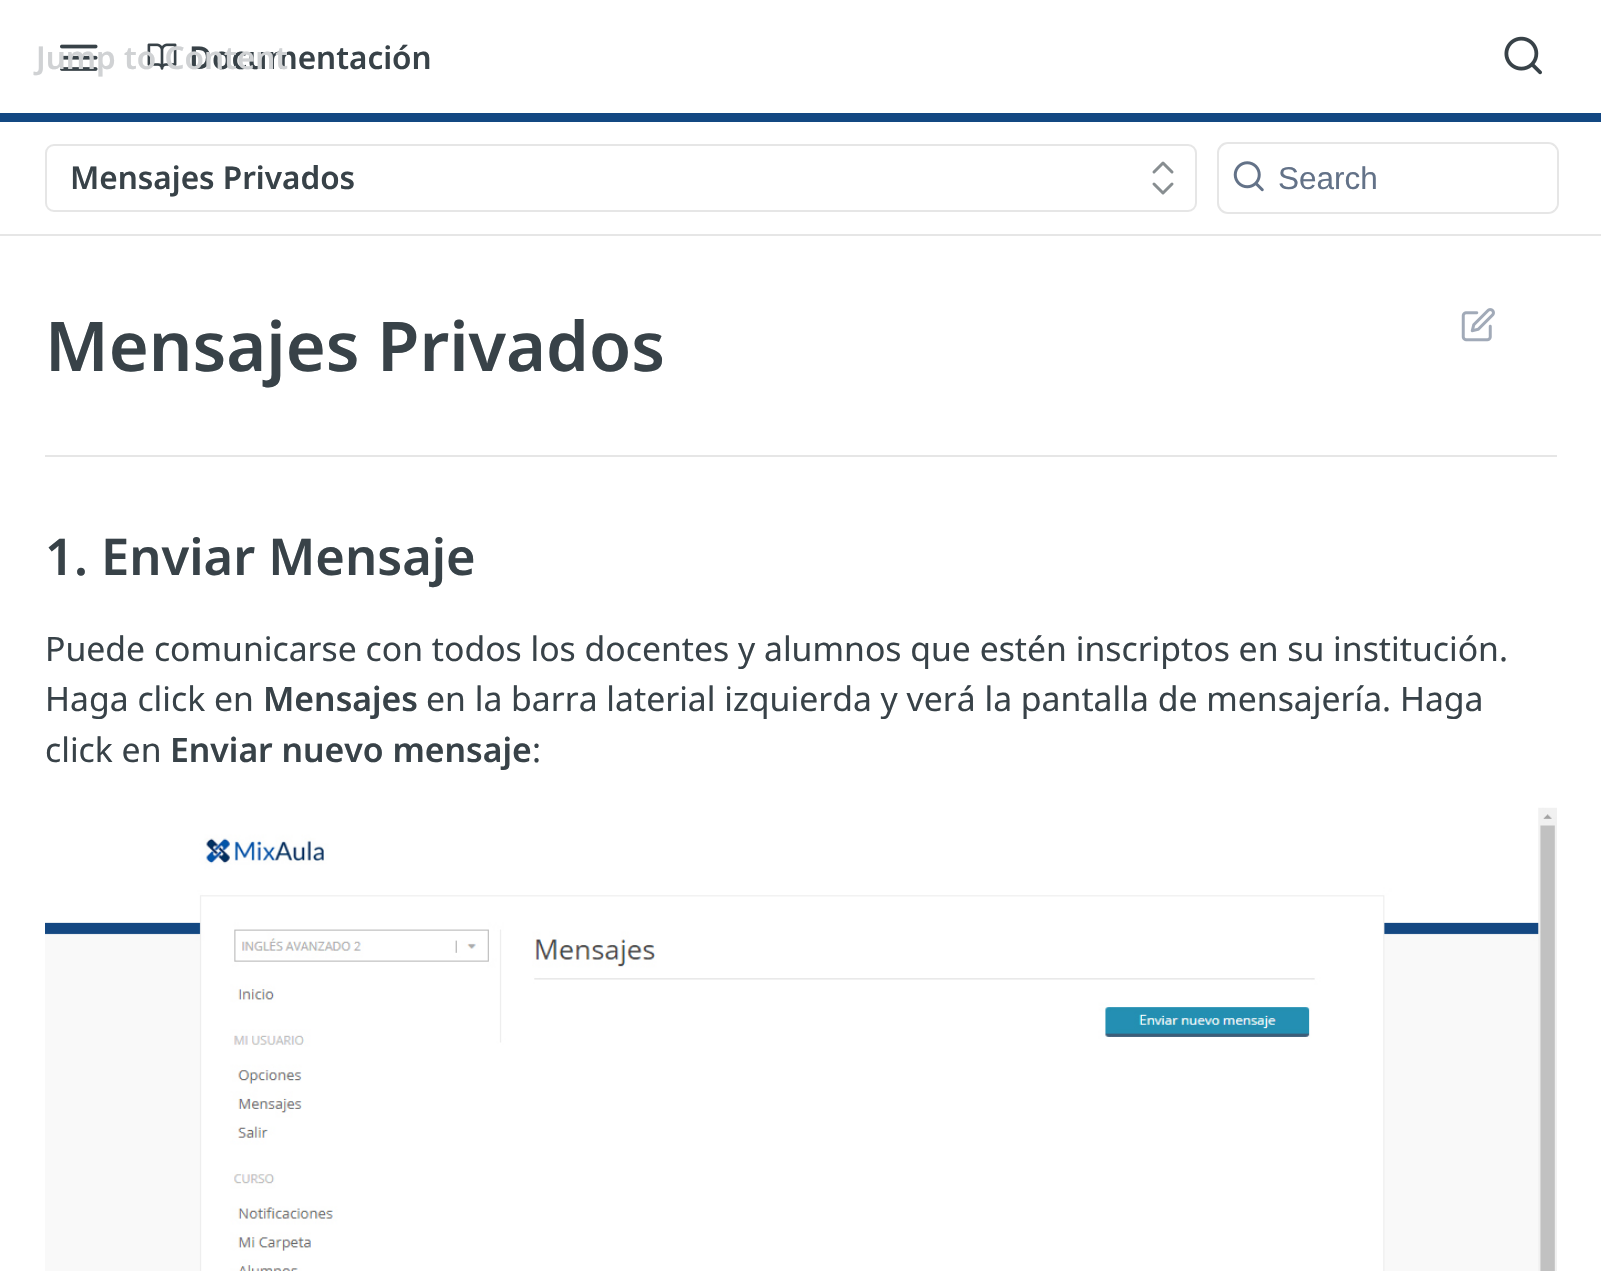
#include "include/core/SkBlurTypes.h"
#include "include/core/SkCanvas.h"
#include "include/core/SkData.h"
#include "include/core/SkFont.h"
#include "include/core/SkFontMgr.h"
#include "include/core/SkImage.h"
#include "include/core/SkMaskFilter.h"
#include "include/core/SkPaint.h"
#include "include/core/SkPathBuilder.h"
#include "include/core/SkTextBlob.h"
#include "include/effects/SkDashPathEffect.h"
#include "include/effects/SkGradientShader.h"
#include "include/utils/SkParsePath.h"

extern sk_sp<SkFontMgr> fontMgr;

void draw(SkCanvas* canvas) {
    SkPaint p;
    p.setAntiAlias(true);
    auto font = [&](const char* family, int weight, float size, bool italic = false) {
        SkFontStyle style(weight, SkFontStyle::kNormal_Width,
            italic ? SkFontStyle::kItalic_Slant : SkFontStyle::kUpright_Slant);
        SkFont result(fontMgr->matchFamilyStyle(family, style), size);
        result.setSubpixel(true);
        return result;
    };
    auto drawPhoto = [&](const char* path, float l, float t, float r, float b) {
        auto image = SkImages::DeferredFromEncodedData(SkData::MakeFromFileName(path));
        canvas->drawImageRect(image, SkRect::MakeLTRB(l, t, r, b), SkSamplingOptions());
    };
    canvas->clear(0xFFFFFFFF);
    p.setColor(0xFFE6E6E6);
    canvas->drawRect(SkRect::MakeLTRB(0, 234, 1601, 236), p);
    p.setColor(0xFF134882);
    canvas->drawRect(SkRect::MakeLTRB(0, 113, 1601, 122), p);
    drawPhoto("media/1.png", 60, 44, 98, 71);
    drawPhoto("media/2.png", 147, 43, 177, 70);
    auto font1 = font("Noto Sans", 600, 31.5f);
    p.setColor(0xFF384248);
    canvas->drawString("Documentación", 189, 69, font1, p);
    p.setColor(0xFFD0D2D4);
    canvas->drawString("Jump to Content", 36, 69, font1, p);
    drawPhoto("media/3.png", 1504, 36, 1542, 75);
    p.setStyle(SkPaint::kStroke_Style);
    p.setStrokeWidth(2);
    p.setColor(0xFFE6E6E6);
    canvas->drawRoundRect(SkRect::MakeLTRB(46, 145, 1196, 211), 8, 8, p);
    p.setStyle(SkPaint::kFill_Style);
    p.setColor(0xFF384248);
    canvas->drawString("Mensajes Privados", 70, 189, font1, p);
    p.setStyle(SkPaint::kStroke_Style);
    p.setStrokeWidth(3);
    p.setStrokeCap(SkPaint::kRound_Cap);
    p.setStrokeJoin(SkPaint::kRound_Join);
    p.setColor(0xFF888E91);
    canvas->drawPath(SkPathBuilder().moveTo(1154, 184).lineTo(1163, 193).lineTo(1172, 184).moveTo(1172, 172).lineTo(1163, 163).lineTo(1154, 172).detach(), p);
    p.setStrokeWidth(2);
    p.setStrokeCap(SkPaint::kButt_Cap);
    p.setStrokeJoin(SkPaint::kMiter_Join);
    p.setColor(0xFFE6E6E6);
    canvas->drawRoundRect(SkRect::MakeLTRB(1218, 143, 1558, 213), 10, 10, p);
    p.setStyle(SkPaint::kFill_Style);
    p.setColor(0xFFFFFFFF);
    canvas->drawRoundRect(SkRect::MakeLTRB(1220, 144, 1557, 212), 9, 9, p);
    drawPhoto("media/4.png", 1233, 161, 1264, 192);
    auto font2 = font("Liberation Sans", 400, 31.5f);
    p.setColor(0xFF637288);
    canvas->drawString("Search", 1278, 189, font2, p);
    p.setColor(0xFFE6E6E6);
    canvas->drawRect(SkRect::MakeLTRB(45, 455, 1557, 457), p);
    auto font3 = font("Noto Sans", 600, 68.5f);
    p.setColor(0xFF384248);
    canvas->drawString("Mensajes Privados", 45, 371, font3, p);
    drawPhoto("media/5.png", 1461, 308, 1495, 342);
    auto font4 = font("Noto Sans", 600, 50.6f);
    canvas->drawString("1. Enviar Mensaje", 45, 575, font4, p);
    auto font5 = font("Noto Sans", 400, 33.75f);
    canvas->drawString("Puede comunicarse con todos los docentes y alumnos que estén inscriptos en su institución.", 45, 661, font5, p);
    canvas->drawString("Haga click en", 45, 711, font5, p);
    auto font6 = font("Noto Sans", 600, 33.75f);
    canvas->drawString("Mensajes", 263, 711, font6, p);
    canvas->drawString("en la barra laterial izquierda y verá la pantalla de mensajería. Haga", 426, 711, font5, p);
    canvas->drawString("click en", 45, 762, font5, p);
    canvas->drawString("Enviar nuevo mensaje", 170, 762, font6, p);
    canvas->drawString(":", 532, 762, font5, p);
    drawPhoto("media/6.png", 45, 807, 1557, 1271);
}
